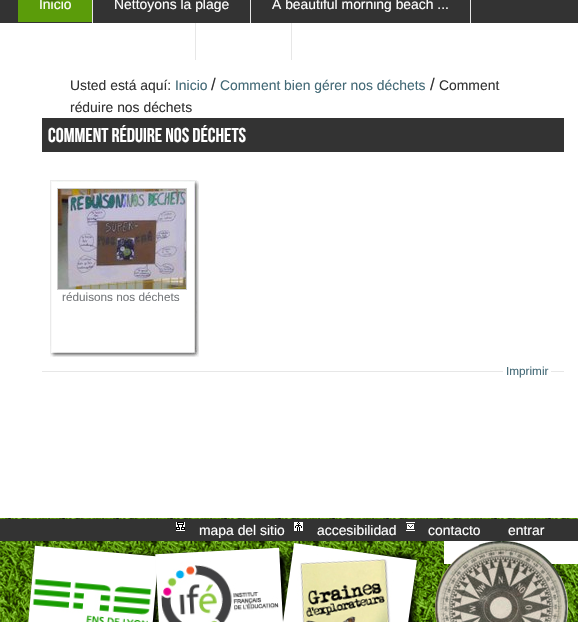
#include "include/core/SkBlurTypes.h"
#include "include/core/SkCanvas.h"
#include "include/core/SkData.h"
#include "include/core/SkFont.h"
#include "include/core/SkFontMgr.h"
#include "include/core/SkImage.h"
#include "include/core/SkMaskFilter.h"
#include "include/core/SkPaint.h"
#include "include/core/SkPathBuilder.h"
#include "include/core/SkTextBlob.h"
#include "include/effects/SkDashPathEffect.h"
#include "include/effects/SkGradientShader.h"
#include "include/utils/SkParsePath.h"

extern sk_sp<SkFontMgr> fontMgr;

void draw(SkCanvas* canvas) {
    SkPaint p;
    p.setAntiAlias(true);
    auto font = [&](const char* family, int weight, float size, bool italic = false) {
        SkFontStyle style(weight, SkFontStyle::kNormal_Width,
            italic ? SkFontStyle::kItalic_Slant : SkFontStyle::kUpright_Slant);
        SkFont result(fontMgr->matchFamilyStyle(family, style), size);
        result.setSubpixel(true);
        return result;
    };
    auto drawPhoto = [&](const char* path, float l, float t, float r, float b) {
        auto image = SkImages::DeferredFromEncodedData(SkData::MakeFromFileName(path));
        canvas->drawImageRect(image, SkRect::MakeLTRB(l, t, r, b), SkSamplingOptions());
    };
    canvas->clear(0xFFFFFFFF);
    {
        const struct { float l, t, r, b; SkColor color; } items[] = {
            {0, 0, 578, 23, 0xFF333333},
            {92, 0, 93, 23, 0xFFE7E7E7},
            {18, 0, 92, 22, 0xFF5B9C0A},
        };
        for (auto [l, t, r, b, color] : items) {
            p.setColor(color);
            canvas->drawRect(SkRect::MakeLTRB(l, t, r, b), p);
        }
    }
    auto font1 = font("Liberation Sans", 400, 13.9f);
    p.setColor(0xFFFFFFFF);
    canvas->drawString("Inicio", 39, 9, font1, p);
    p.setColor(0xFFE7E7E7);
    canvas->drawRect(SkRect::MakeLTRB(250, 0, 251, 23), p);
    p.setColor(0xFFFFFFFF);
    canvas->drawString("Nettoyons la plage", 114, 9, font1, p);
    p.setColor(0xFFE7E7E7);
    canvas->drawRect(SkRect::MakeLTRB(470, 0, 471, 23), p);
    p.setColor(0xFFFFFFFF);
    canvas->drawString("A beautiful morning beach ...", 272, 9, font1, p);
    p.setColor(0xFFE7E7E7);
    canvas->drawRect(SkRect::MakeLTRB(195, 23, 196, 60), p);
    canvas->drawRect(SkRect::MakeLTRB(291, 23, 292, 60), p);
    drawPhoto("media/1.png", 40, 0, 62, 3);
    p.setColor(0xFF333333);
    canvas->drawString("Usted está aquí:", 70, 90, font1, p);
    p.setColor(0xFF436976);
    canvas->drawString("Inicio", 175, 90, font1, p);
    auto font2 = font("Liberation Sans", 400, 17);
    p.setColor(0xFF333333);
    canvas->drawString("/", 211, 90, font2, p);
    p.setColor(0xFF436976);
    canvas->drawString("Comment bien gérer nos déchets", 220, 90, font1, p);
    p.setColor(0xFF333333);
    canvas->drawString("/", 430, 90, font2, p);
    canvas->drawString("Comment", 439, 90, font1, p);
    canvas->drawString("réduire nos déchets", 70, 112, font1, p);
    canvas->drawRect(SkRect::MakeLTRB(42, 118, 564, 152), p);
    auto font3 = font("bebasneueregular", 400, 20);
    p.setColor(0xFFFFFFFF);
    canvas->drawString("Comment réduire nos déchets", 48, 142, font3, p);
    drawPhoto("media/2.png", 50, 180, 199, 357);
    p.setStyle(SkPaint::kStroke_Style);
    p.setStrokeWidth(1);
    p.setColor(0xFFCCCCCC);
    canvas->drawRect(SkRect::MakeLTRB(57.5f, 188.5f, 186.5f, 289.5f), p);
    drawPhoto("media/3.png", 58, 189, 186, 289);
    auto font4 = font("Liberation Sans", 400, 11.75f);
    p.setStyle(SkPaint::kFill_Style);
    p.setColor(0xFF76797C);
    canvas->drawString("réduisons nos déchets", 62, 301, font4, p);
    p.setColor(0xFFE7E7E7);
    canvas->drawRect(SkRect::MakeLTRB(42, 371, 564, 372), p);
    p.setColor(0xFFFFFFFF);
    canvas->drawRect(SkRect::MakeLTRB(503, 371, 551, 372), p);
    p.setColor(0xFF436976);
    canvas->drawString("Imprimir", 506, 375, font4, p);
    drawPhoto("media/4.png", 0, 518, 578, 622);
    canvas->drawRect(SkRect::MakeLTRB(154, 605, 158, 606), p);
    p.setColor(0xFF000000);
    p.setMaskFilter(SkMaskFilter::MakeBlur(kNormal_SkBlurStyle, 2.5f));
    canvas->drawRect(SkRect::MakeLTRB(34, 555, 158, 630), p);
    p.setMaskFilter(nullptr);
    drawPhoto("media/5.png", 28, 545, 157, 622);
    p.setMaskFilter(SkMaskFilter::MakeBlur(kNormal_SkBlurStyle, 2.5f));
    canvas->drawRect(SkRect::MakeLTRB(162, 555, 286, 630), p);
    p.setMaskFilter(nullptr);
    drawPhoto("media/8.png", 155, 547, 283, 622);
    p.setMaskFilter(SkMaskFilter::MakeBlur(kNormal_SkBlurStyle, 2.5f));
    canvas->drawRect(SkRect::MakeLTRB(290, 555, 414, 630), p);
    p.setMaskFilter(nullptr);
    drawPhoto("media/6.png", 283, 543, 417, 622);
    p.setColor(0xFFFFFFFF);
    canvas->drawRect(SkRect::MakeLTRB(444, 541, 578, 564), p);
    drawPhoto("media/7.png", 435, 541, 568, 622);
    p.setColor(0xFF333333);
    canvas->drawRect(SkRect::MakeLTRB(0, 519, 578, 541), p);
    drawPhoto("media/9.png", 176, 522, 185, 531);
    p.setColor(0xFFFFFFFF);
    canvas->drawString("mapa del sitio", 199, 535, font1, p);
    drawPhoto("media/10.png", 294, 522, 303, 531);
    canvas->drawString("accesibilidad", 317, 535, font1, p);
    drawPhoto("media/11.png", 406, 522, 415, 531);
    canvas->drawString("contacto", 428, 535, font1, p);
    canvas->drawString("entrar", 508, 535, font1, p);
}
